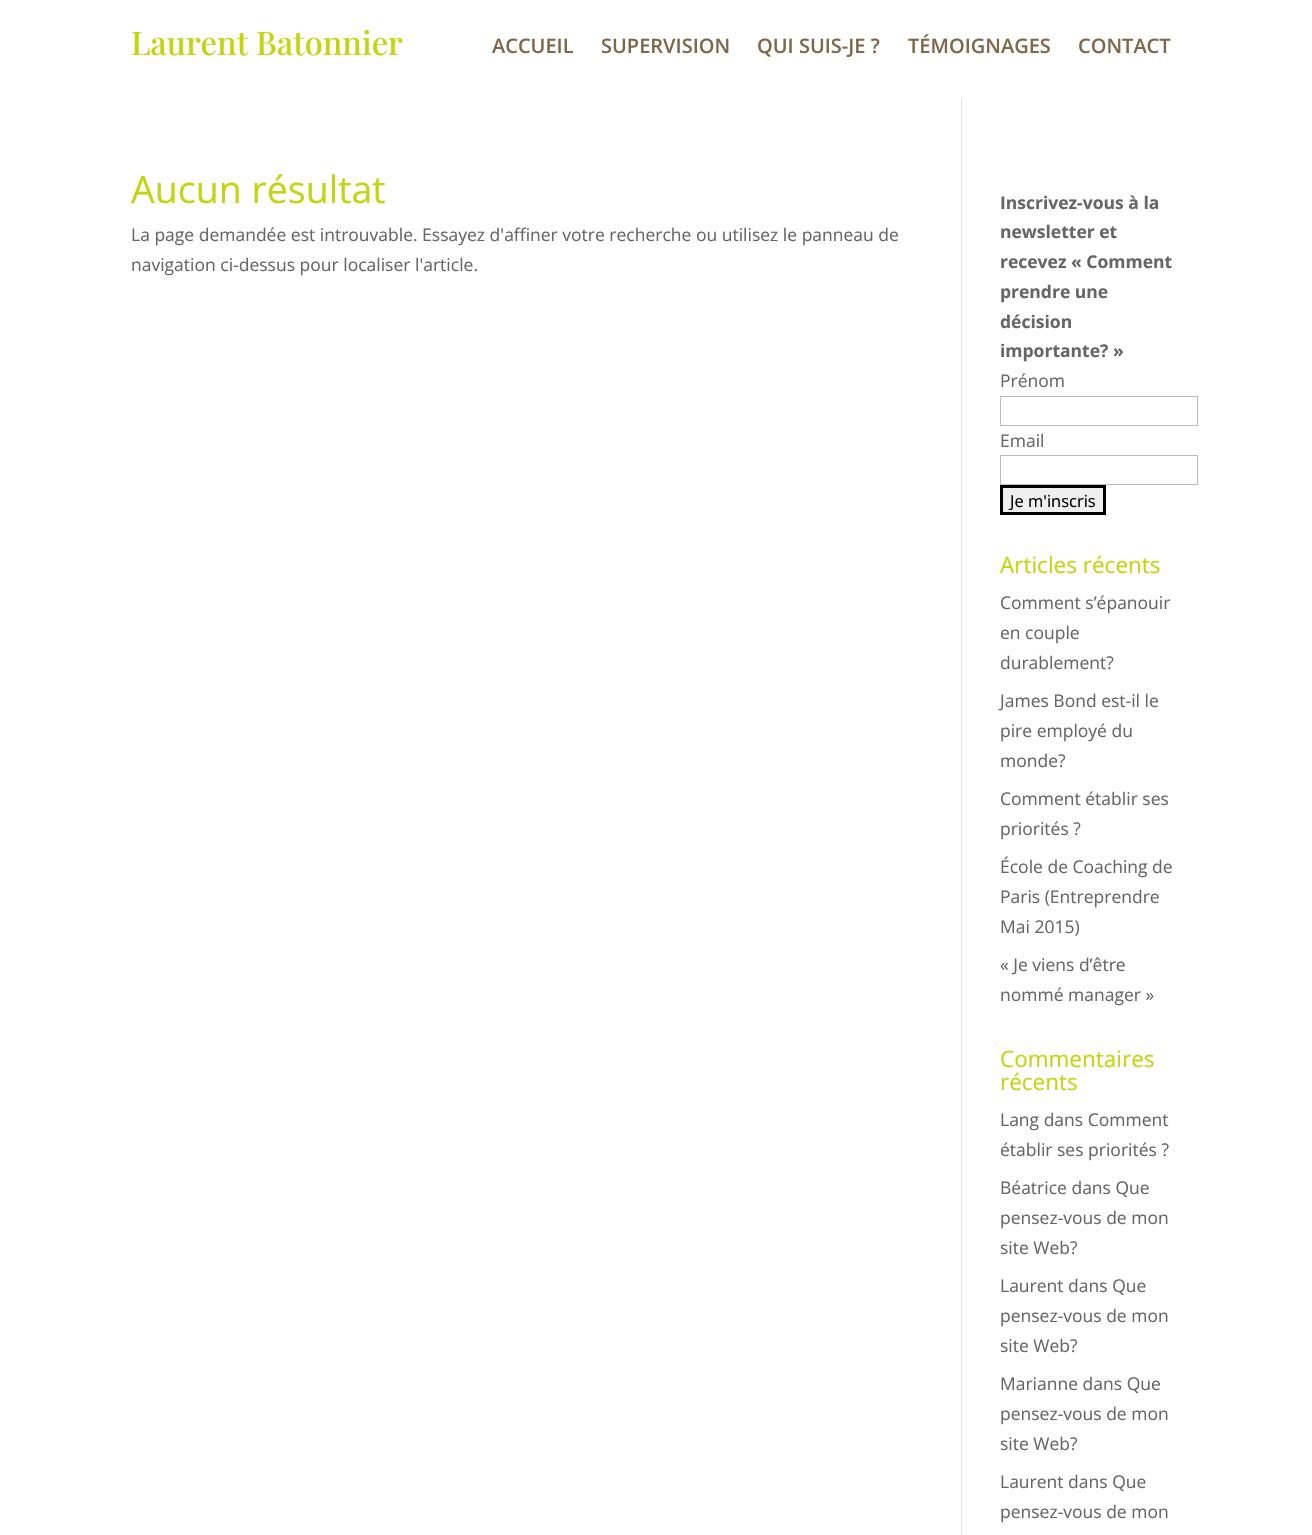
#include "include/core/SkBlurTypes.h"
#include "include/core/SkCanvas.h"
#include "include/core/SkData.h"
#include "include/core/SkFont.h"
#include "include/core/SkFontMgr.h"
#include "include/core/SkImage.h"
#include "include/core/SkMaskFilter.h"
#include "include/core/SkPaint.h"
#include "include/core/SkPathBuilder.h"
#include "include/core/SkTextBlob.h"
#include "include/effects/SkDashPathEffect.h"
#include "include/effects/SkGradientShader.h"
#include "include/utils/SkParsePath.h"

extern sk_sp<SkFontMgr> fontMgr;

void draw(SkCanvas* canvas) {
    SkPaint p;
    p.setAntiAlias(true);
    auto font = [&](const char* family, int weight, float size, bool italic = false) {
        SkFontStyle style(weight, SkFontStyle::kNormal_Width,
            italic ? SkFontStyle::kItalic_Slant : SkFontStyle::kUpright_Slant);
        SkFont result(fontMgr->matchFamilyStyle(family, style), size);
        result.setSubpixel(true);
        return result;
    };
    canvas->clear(0xFFFFFFFF);
    auto font1 = font("Playfair Display", 500, 32.5f);
    p.setColor(0xFFC2D50E);
    canvas->drawString("Laurent Batonnier", 131, 55, font1, p);
    auto font2 = font("Open Sans", 600, 20);
    p.setColor(0xFF7E6849);
    {
        const struct { const char* s; float x, y; } items[] = {
            {"ACCUEIL", 492, 53},
            {"SUPERVISION", 601, 53},
            {"QUI SUIS-JE ?", 757, 53},
            {"TÉMOIGNAGES", 908, 53},
            {"CONTACT", 1078, 53},
        };
        for (auto [s, x, y] : items) {
            canvas->drawString(s, x, y, font2, p);
        }
    }
    p.setColor(0xFFE2E2E2);
    canvas->drawRect(SkRect::MakeLTRB(961, 98, 962, 1535), p);
    auto font3 = font("Open Sans", 400, 37.5f);
    p.setColor(0xFFC2D50E);
    canvas->drawString("Aucun résultat", 131, 203, font3, p);
    auto font4 = font("Open Sans", 400, 17.5f);
    p.setColor(0xFF666666);
    canvas->drawString("La page demandée est introuvable. Essayez d'affiner votre recherche ou utilisez le panneau de", 131, 241, font4, p);
    canvas->drawString("navigation ci-dessus pour localiser l'article.", 131, 271, font4, p);
    auto font5 = font("Open Sans", 700, 17.5f);
    {
        const struct { const char* s; float x, y; } items[] = {
            {"Inscrivez-vous à la", 1000, 209},
            {"newsletter et", 1000, 238},
            {"recevez « Comment", 1000, 268},
            {"prendre une", 1000, 298},
            {"décision", 1000, 328},
            {"importante? »", 1000, 357},
        };
        for (auto [s, x, y] : items) {
            canvas->drawString(s, x, y, font5, p);
        }
    }
    canvas->drawString("Prénom", 1000, 387, font4, p);
    p.setStyle(SkPaint::kStroke_Style);
    p.setStrokeWidth(1);
    p.setColor(0xFFBBBBBB);
    canvas->drawRect(SkRect::MakeLTRB(1000.5f, 396.5f, 1197.5f, 425.5f), p);
    p.setStyle(SkPaint::kFill_Style);
    p.setColor(0xFF666666);
    canvas->drawString("Email", 1000, 447, font4, p);
    p.setStyle(SkPaint::kStroke_Style);
    p.setColor(0xFFBBBBBB);
    canvas->drawRect(SkRect::MakeLTRB(1000.5f, 455.5f, 1197.5f, 484.5f), p);
    p.setStyle(SkPaint::kFill_Style);
    p.setColor(0xFFEFEFEF);
    canvas->drawRect(SkRect::MakeLTRB(1001.5f, 486.5f, 1104.5f, 513.5f), p);
    p.setStyle(SkPaint::kStroke_Style);
    p.setStrokeWidth(3);
    p.setColor(0xFF000000);
    canvas->drawRect(SkRect::MakeLTRB(1001.5f, 486.5f, 1104.5f, 513.5f), p);
    auto font6 = font("Open Sans", 400, 16.5f);
    p.setStyle(SkPaint::kFill_Style);
    canvas->drawString("Je m'inscris", 1010, 507, font6, p);
    auto font7 = font("Open Sans", 400, 22.5f);
    p.setColor(0xFFC2D50E);
    canvas->drawString("Articles récents", 1000, 573, font7, p);
    p.setColor(0xFF666666);
    {
        const struct { const char* s; float x, y; } items[] = {
            {"Comment s’épanouir", 1000, 609},
            {"en couple", 1000, 639},
            {"durablement?", 1000, 669},
            {"James Bond est-il le", 1000, 707},
            {"pire employé du", 1000, 737},
            {"monde?", 1000, 767},
            {"Comment établir ses", 1000, 805},
            {"priorités ?", 1000, 835},
            {"École de Coaching de", 1000, 873},
            {"Paris (Entreprendre", 1000, 903},
            {"Mai 2015)", 1000, 933},
            {"« Je viens d’être", 1000, 971},
            {"nommé manager »", 1000, 1001},
        };
        for (auto [s, x, y] : items) {
            canvas->drawString(s, x, y, font4, p);
        }
    }
    p.setColor(0xFFC2D50E);
    canvas->drawString("Commentaires", 1000, 1067, font7, p);
    canvas->drawString("récents", 1000, 1090, font7, p);
    p.setColor(0xFF666666);
    {
        const struct { const char* s; float x, y; } items[] = {
            {"Lang dans Comment", 1000, 1126},
            {"établir ses priorités ?", 1000, 1156},
            {"Béatrice dans Que", 1000, 1194},
            {"pensez-vous de mon", 1000, 1224},
            {"site Web?", 1000, 1254},
            {"Laurent dans Que", 1000, 1292},
            {"pensez-vous de mon", 1000, 1322},
            {"site Web?", 1000, 1352},
            {"Marianne dans Que", 1000, 1390},
            {"pensez-vous de mon", 1000, 1420},
            {"site Web?", 1000, 1450},
            {"Laurent dans Que", 1000, 1488},
            {"pensez-vous de mon", 1000, 1518},
        };
        for (auto [s, x, y] : items) {
            canvas->drawString(s, x, y, font4, p);
        }
    }
}
